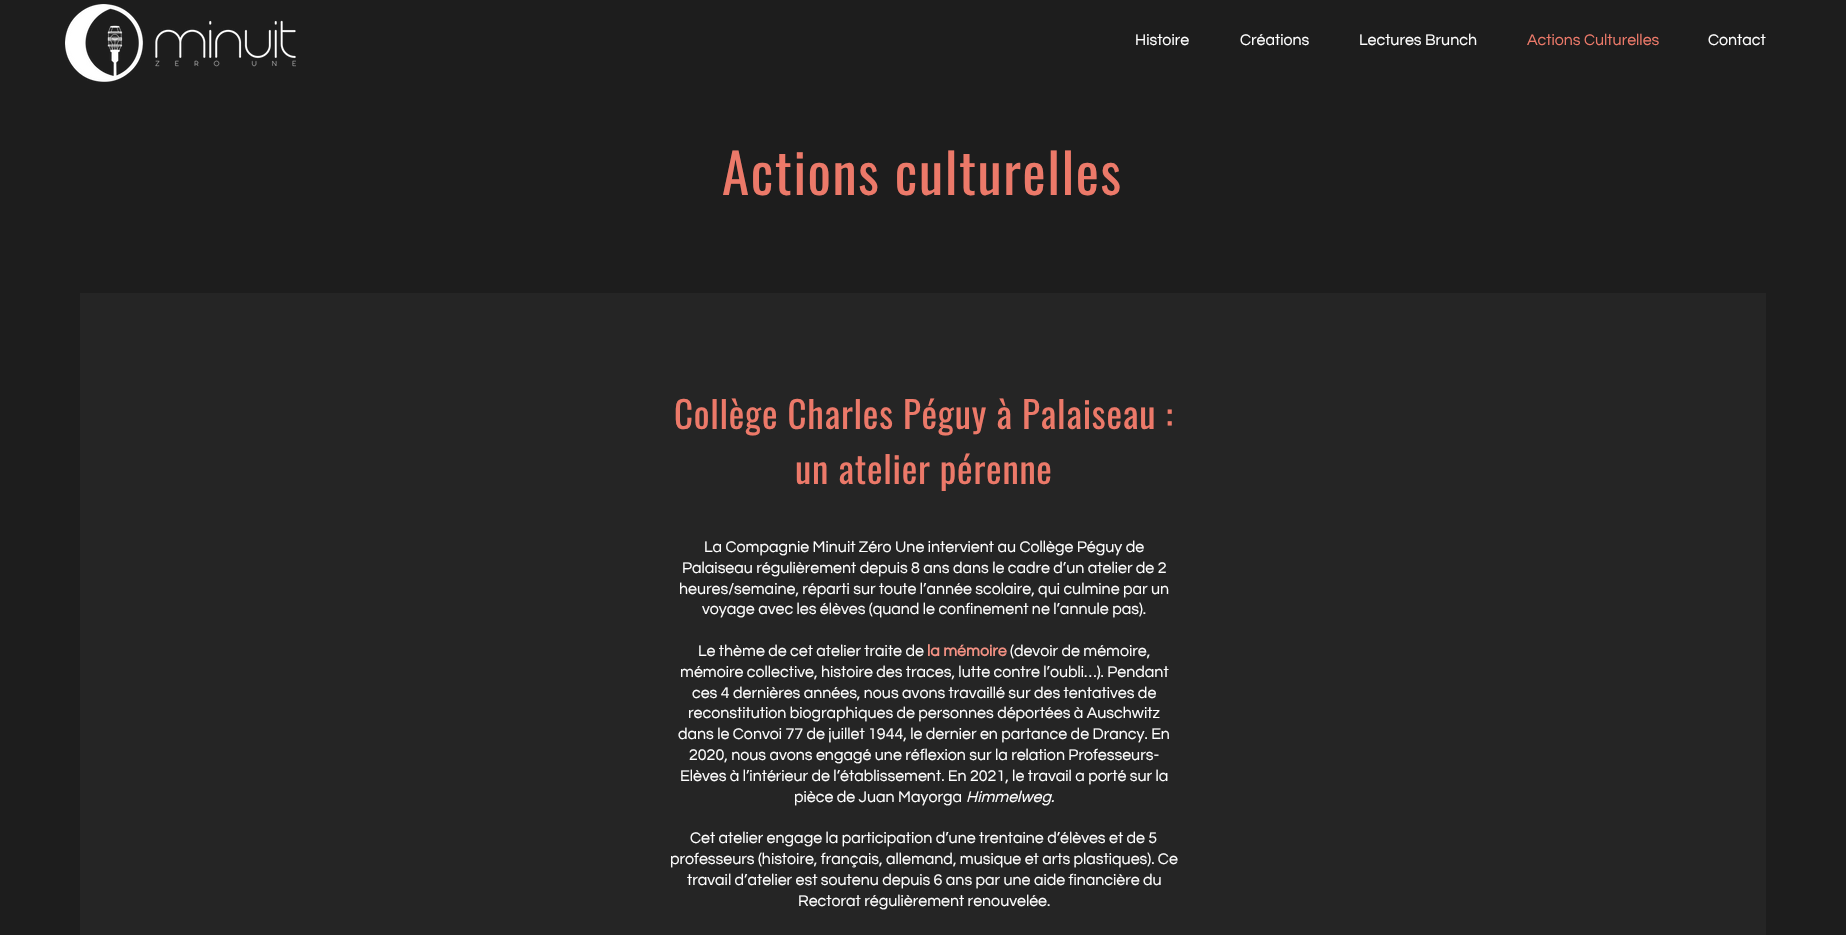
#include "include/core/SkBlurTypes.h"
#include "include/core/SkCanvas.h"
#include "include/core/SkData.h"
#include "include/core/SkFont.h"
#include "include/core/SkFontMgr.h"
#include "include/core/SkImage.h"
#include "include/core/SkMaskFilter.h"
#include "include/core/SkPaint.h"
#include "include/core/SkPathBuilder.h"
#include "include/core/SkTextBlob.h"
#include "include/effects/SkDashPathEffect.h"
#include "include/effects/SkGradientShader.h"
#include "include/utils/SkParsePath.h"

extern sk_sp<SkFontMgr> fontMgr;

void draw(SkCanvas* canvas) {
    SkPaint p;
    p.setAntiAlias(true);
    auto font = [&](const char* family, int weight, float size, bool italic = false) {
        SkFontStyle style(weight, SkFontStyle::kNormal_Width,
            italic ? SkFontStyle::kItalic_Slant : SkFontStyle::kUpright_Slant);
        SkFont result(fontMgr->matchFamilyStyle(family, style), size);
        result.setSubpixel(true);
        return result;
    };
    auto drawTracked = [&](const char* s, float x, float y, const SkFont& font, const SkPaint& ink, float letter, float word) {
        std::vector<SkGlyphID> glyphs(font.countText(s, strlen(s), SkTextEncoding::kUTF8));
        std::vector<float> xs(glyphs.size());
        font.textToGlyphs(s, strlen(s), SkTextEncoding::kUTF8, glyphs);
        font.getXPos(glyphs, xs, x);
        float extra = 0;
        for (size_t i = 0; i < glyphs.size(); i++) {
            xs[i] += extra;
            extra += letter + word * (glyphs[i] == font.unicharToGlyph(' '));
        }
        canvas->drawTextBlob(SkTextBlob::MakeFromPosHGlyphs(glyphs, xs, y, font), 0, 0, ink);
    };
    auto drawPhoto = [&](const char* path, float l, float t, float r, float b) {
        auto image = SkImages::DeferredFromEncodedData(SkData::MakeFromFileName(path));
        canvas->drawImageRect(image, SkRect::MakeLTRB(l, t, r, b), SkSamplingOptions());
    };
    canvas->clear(0xFF1D1D1D);
    auto font1 = font("Questrial", 400, 16);
    p.setColor(0xFFFFFFFF);
    {
        const struct { const char* s; float x, y; } items[] = {
            {"Histoire", 1135, 45},
            {"Créations", 1240, 45},
            {"Lectures Brunch", 1359, 45},
        };
        for (auto [s, x, y] : items) {
            canvas->drawString(s, x, y, font1, p);
        }
    }
    p.setColor(0xFFEC7969);
    canvas->drawString("Actions Culturelles", 1527, 45, font1, p);
    p.setColor(0xFFFFFFFF);
    canvas->drawString("Contact", 1708, 45, font1, p);
    drawPhoto("media/1.png", 65, 4, 296, 82);
    auto font2 = font("Oswald", 400, 55);
    p.setColor(0xFFEC7969);
    drawTracked("Actions culturelles", 722, 195, font2, p, 1.6f, 0);
    p.setColor(0xFF252525);
    canvas->drawRect(SkRect::MakeLTRB(80, 293, 1766, 935), p);
    auto font3 = font("Oswald", 400, 37);
    p.setColor(0xFFEC7969);
    drawTracked("Collège Charles Péguy à Palaiseau :", 674, 429, font3, p, 0.75f, 0);
    drawTracked("un atelier pérenne", 795, 484, font3, p, 0.75f, 0);
    p.setColor(0xFFFFFFFF);
    {
        const struct { const char* s; float x, y; } items[] = {
            {"La Compagnie Minuit Zéro Une intervient au Collège Péguy de", 704, 552},
            {"Palaiseau régulièrement depuis 8 ans dans le cadre d’un atelier de 2", 682, 573},
            {"heures/semaine, réparti sur toute l’année scolaire, qui culmine par un", 679, 594},
            {"voyage avec les élèves (quand le confinement ne l’annule pas).", 702, 614},
            {"Le thème de cet atelier traite de", 698, 656},
        };
        for (auto [s, x, y] : items) {
            canvas->drawString(s, x, y, font1, p);
        }
    }
    auto font4 = font("Questrial", 700, 16);
    p.setColor(0xFFF59284);
    canvas->drawString("la mémoire", 927, 656, font4, p);
    p.setColor(0xFFFFFFFF);
    {
        const struct { const char* s; float x, y; } items[] = {
            {"(devoir de mémoire,", 1010, 656},
            {"mémoire collective, histoire des traces, lutte contre l’oubli…). Pendant", 680, 677},
            {"ces 4 dernières années, nous avons travaillé sur des tentatives de", 692, 698},
            {"reconstitution biographiques de personnes déportées à Auschwitz", 688, 718},
            {"dans le Convoi 77 de juillet 1944, le dernier en partance de Drancy. En", 678, 739},
            {"2020, nous avons engagé une réflexion sur la relation Professeurs-", 689, 760},
            {"Elèves à l’intérieur de l’établissement. En 2021, le travail a porté sur la", 680, 781},
            {"pièce de Juan Mayorga", 794, 802},
        };
        for (auto [s, x, y] : items) {
            canvas->drawString(s, x, y, font1, p);
        }
    }
    auto font5 = font("Questrial", 400, 16, true);
    canvas->drawString("Himmelweg.", 966, 802, font5, p);
    {
        const struct { const char* s; float x, y; } items[] = {
            {"Cet atelier engage la participation d’une trentaine d’élèves et de 5", 690, 843},
            {"professeurs (histoire, français, allemand, musique et arts plastiques). Ce", 670, 864},
            {"travail d’atelier est soutenu depuis 6 ans par une aide financière du", 687, 885},
            {"Rectorat régulièrement renouvelée.", 798, 906},
        };
        for (auto [s, x, y] : items) {
            canvas->drawString(s, x, y, font1, p);
        }
    }
}
